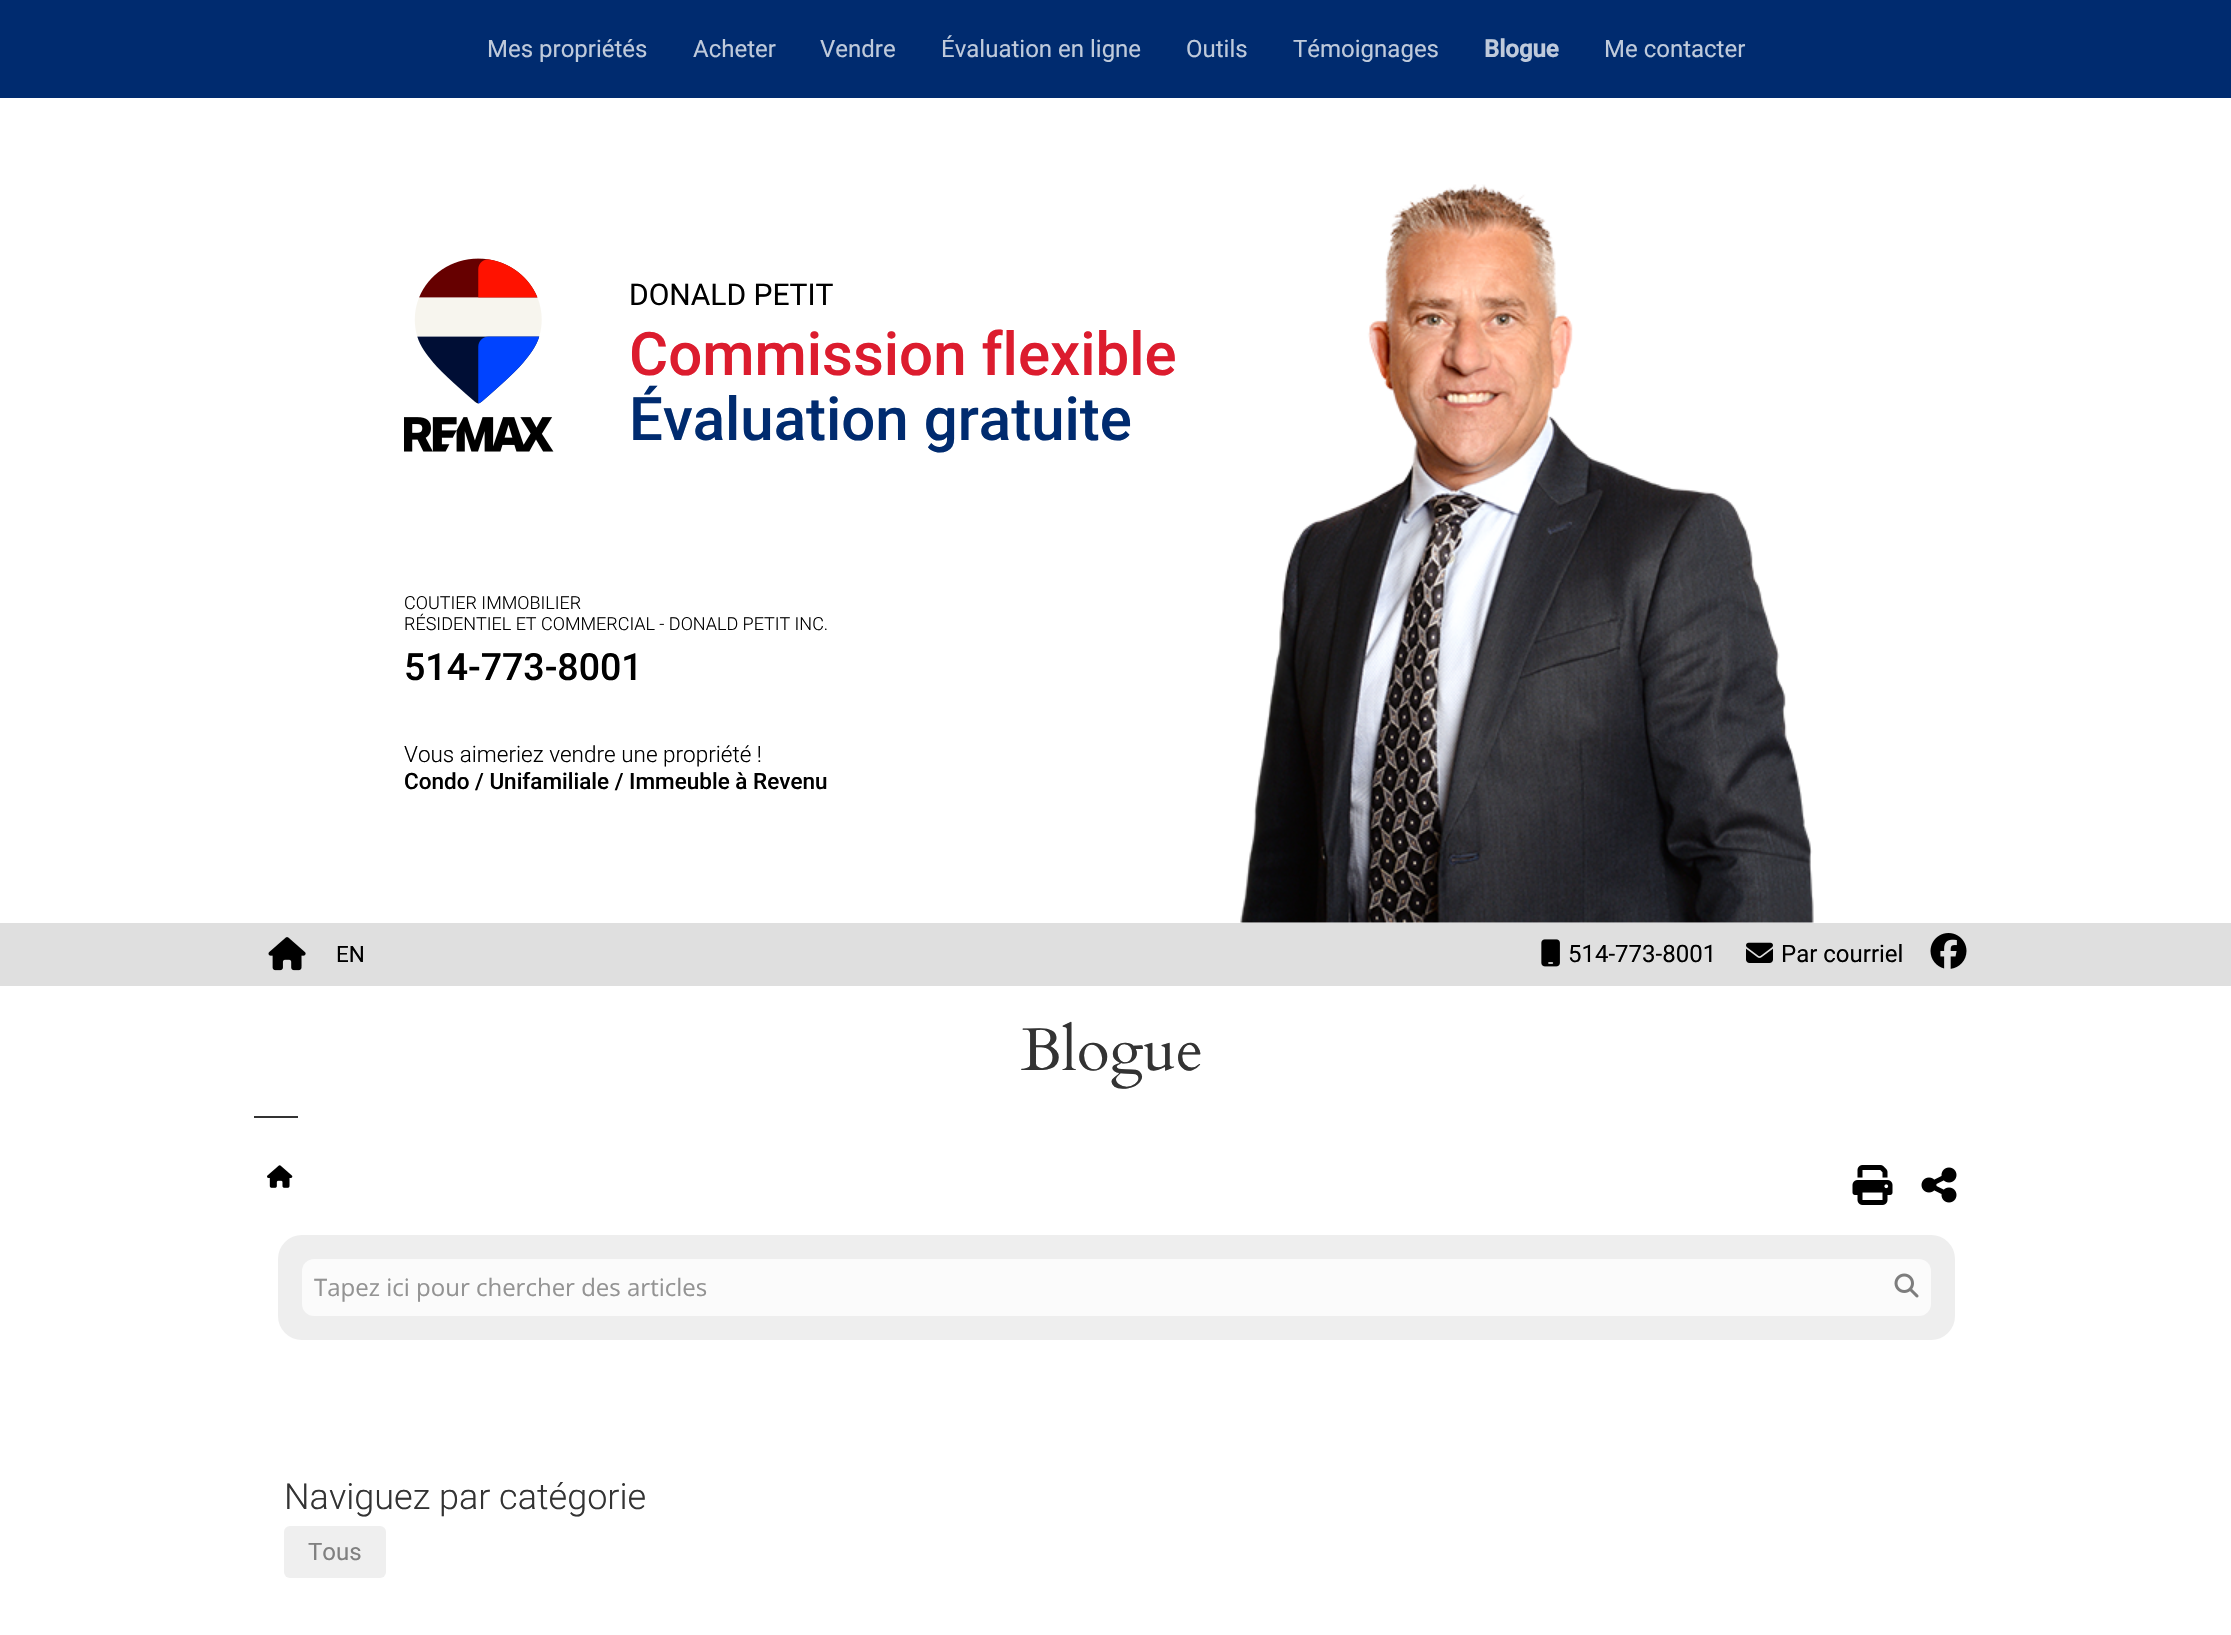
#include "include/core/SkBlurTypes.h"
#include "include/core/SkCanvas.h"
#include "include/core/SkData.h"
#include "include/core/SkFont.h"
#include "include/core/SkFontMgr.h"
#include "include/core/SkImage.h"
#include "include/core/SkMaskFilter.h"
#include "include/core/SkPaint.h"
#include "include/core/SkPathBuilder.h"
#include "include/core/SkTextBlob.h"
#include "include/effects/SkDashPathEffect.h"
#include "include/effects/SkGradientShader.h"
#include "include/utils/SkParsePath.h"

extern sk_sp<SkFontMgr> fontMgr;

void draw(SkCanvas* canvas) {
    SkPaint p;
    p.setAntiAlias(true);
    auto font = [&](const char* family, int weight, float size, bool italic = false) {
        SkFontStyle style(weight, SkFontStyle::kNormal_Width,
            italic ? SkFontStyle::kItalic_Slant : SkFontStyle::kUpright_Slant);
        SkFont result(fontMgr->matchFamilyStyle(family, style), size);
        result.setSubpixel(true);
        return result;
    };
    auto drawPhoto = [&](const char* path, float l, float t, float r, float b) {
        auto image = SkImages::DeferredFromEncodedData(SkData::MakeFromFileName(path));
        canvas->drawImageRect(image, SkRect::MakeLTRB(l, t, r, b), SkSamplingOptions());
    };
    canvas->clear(0xFFFFFFFF);
    p.setColor(0xFF002B6F);
    canvas->drawRect(SkRect::MakeLTRB(0, 0, 2231, 98), p);
    auto font1 = font("Roboto", 400, 24);
    p.setColor(0xFFBFCADB);
    {
        const struct { const char* s; float x, y; } items[] = {
            {"Mes propriétés", 487, 57},
            {"Acheter", 693, 57},
            {"Vendre", 820, 57},
            {"Évaluation en ligne", 941, 57},
            {"Outils", 1186, 57},
            {"Témoignages", 1293, 57},
        };
        for (auto [s, x, y] : items) {
            canvas->drawString(s, x, y, font1, p);
        }
    }
    auto font2 = font("Roboto", 700, 24);
    canvas->drawString("Blogue", 1484, 57, font2, p);
    canvas->drawString("Me contacter", 1604, 57, font1, p);
    drawPhoto("media/1.png", 404, 258, 554, 452);
    auto font3 = font("Roboto", 400, 30);
    p.setColor(0xFF000000);
    canvas->drawString("DONALD PETIT", 629, 305, font3, p);
    drawPhoto("media/2.png", 1240, 184, 1814, 923);
    auto font4 = font("Roboto", 500, 60);
    p.setColor(0xFFDC1C2E);
    canvas->drawString("Commission flexible", 629, 375, font4, p);
    p.setColor(0xFF002B6F);
    canvas->drawString("Évaluation gratuite", 629, 440, font4, p);
    auto font5 = font("Roboto", 300, 18);
    p.setColor(0xFF000000);
    canvas->drawString("COUTIER IMMOBILIER", 404, 609, font5, p);
    canvas->drawString("RÉSIDENTIEL ET COMMERCIAL - DONALD PETIT INC.", 404, 630, font5, p);
    auto font6 = font("Roboto", 500, 37.5f);
    canvas->drawString("514-773-8001", 404, 680, font6, p);
    auto font7 = font("Roboto", 300, 22.5f);
    canvas->drawString("Vous aimeriez vendre une propriété !", 404, 762, font7, p);
    auto font8 = font("Roboto", 500, 22.5f);
    canvas->drawString("Condo / Unifamiliale / Immeuble à Revenu", 404, 789, font8, p);
    p.setColor(0xFFDFDFDF);
    canvas->drawRect(SkRect::MakeLTRB(0, 923, 2231, 986), p);
    drawPhoto("media/3.png", 268, 937, 306, 971);
    auto font9 = font("Roboto", 400, 22.5f);
    p.setColor(0xFF000000);
    canvas->drawString("EN", 336, 962, font9, p);
    drawPhoto("media/4.png", 1541, 939, 1560, 967);
    canvas->drawString("514-773-8001", 1568, 962, font1, p);
    drawPhoto("media/5.png", 1746, 942, 1773, 963);
    canvas->drawString("Par courriel", 1781, 962, font1, p);
    drawPhoto("media/6.png", 1930, 933, 1967, 969);
    auto font10 = font("Cardo", 400, 60);
    p.setColor(0xFF333333);
    canvas->drawString("Blogue", 1021, 1070, font10, p);
    canvas->drawRect(SkRect::MakeLTRB(254, 1116, 298, 1118), p);
    drawPhoto("media/7.png", 267, 1165, 293, 1188);
    drawPhoto("media/8.png", 1852, 1165, 1893, 1205);
    drawPhoto("media/9.png", 1921, 1167, 1957, 1203);
    p.setColor(0xFFEEEEEE);
    canvas->drawRoundRect(SkRect::MakeLTRB(278, 1235, 1955, 1340), 24, 24, p);
    p.setColor(0xFFFBFBFB);
    canvas->drawRoundRect(SkRect::MakeLTRB(302, 1259, 1931, 1316), 12, 12, p);
    auto font11 = font("Open Sans", 400, 24);
    p.setColor(0xFF939393);
    canvas->drawString("Tapez ici pour chercher des articles", 314, 1296, font11, p);
    drawPhoto("media/10.png", 1894, 1273, 1919, 1298);
    auto font12 = font("Roboto", 300, 36);
    p.setColor(0xFF333333);
    canvas->drawString("Naviguez par catégorie", 284, 1509, font12, p);
    p.setColor(0xFFEFEFEF);
    canvas->drawRoundRect(SkRect::MakeLTRB(284, 1526, 386, 1578), 6, 6, p);
    p.setColor(0xFF808080);
    canvas->drawString("Tous", 308, 1560, font1, p);
}
